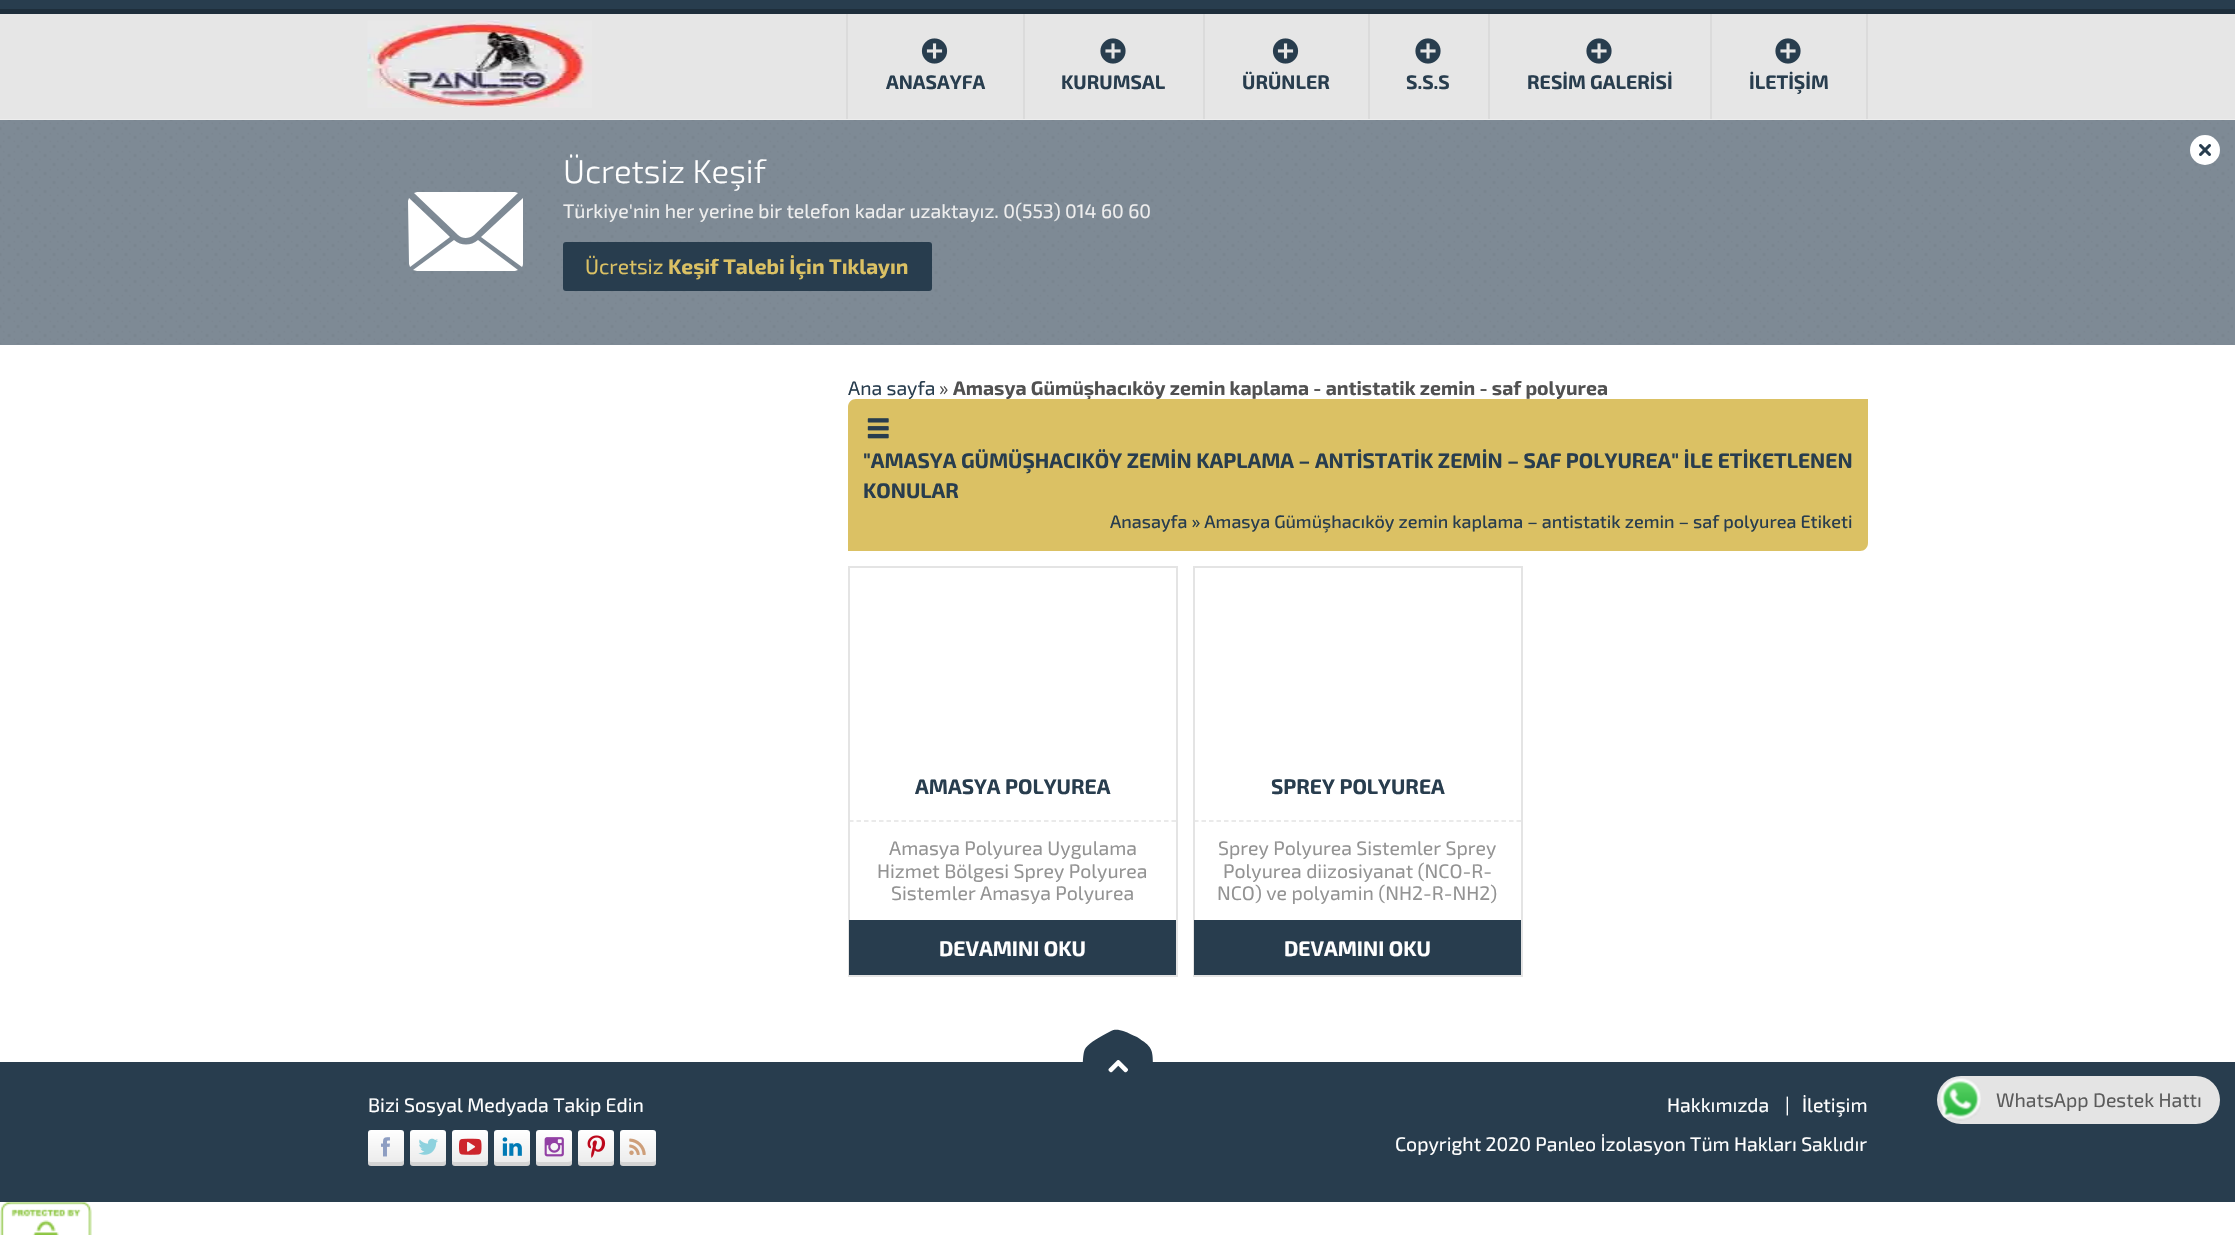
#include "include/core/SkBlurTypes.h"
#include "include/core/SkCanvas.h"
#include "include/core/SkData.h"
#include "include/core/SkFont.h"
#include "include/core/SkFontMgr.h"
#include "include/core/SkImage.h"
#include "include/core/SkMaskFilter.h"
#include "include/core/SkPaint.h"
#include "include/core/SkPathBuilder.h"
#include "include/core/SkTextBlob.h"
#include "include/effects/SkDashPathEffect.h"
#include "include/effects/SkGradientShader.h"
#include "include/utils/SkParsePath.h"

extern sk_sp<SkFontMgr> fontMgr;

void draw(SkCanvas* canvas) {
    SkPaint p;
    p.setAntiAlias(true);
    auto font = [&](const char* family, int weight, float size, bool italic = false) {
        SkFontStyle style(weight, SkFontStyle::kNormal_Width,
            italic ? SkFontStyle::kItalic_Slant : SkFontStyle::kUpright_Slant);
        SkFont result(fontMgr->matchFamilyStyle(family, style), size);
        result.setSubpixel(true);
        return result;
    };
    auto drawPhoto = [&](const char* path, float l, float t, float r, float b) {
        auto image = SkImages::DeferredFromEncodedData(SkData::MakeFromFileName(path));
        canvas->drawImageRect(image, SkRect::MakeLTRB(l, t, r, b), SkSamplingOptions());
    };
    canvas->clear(0xFFFFFFFF);
    {
        const struct { float l, t, r, b; SkColor color; } items[] = {
            {0, 14, 2235, 119, 0xFFE6E6E6},
            {0, 119, 2235, 120, 0xFFEEEEEE},
            {0, 0, 2235, 9, 0xFF283D4E},
            {0, 9, 2235, 14, 0xFF1E2E3B},
        };
        for (auto [l, t, r, b, color] : items) {
            p.setColor(color);
            canvas->drawRect(SkRect::MakeLTRB(l, t, r, b), p);
        }
    }
    drawPhoto("media/1.png", 367, 20, 592, 108);
    p.setColor(0xFFDBDBDB);
    canvas->drawRect(SkRect::MakeLTRB(1023, 14, 1025, 119), p);
    canvas->drawRect(SkRect::MakeLTRB(846, 14, 848, 119), p);
    drawPhoto("media/2.png", 921, 38, 948, 64);
    auto font1 = font("Exo 2", 700, 19.5f);
    p.setColor(0xFF283D4E);
    canvas->drawString("ANASAYFA", 886, 89, font1, p);
    p.setColor(0xFFDBDBDB);
    canvas->drawRect(SkRect::MakeLTRB(1203, 14, 1205, 119), p);
    drawPhoto("media/3.png", 1100, 38, 1126, 64);
    p.setColor(0xFF283D4E);
    canvas->drawString("KURUMSAL", 1061, 89, font1, p);
    p.setColor(0xFFDBDBDB);
    canvas->drawRect(SkRect::MakeLTRB(1368, 14, 1370, 119), p);
    drawPhoto("media/2.png", 1272, 38, 1299, 64);
    p.setColor(0xFF283D4E);
    canvas->drawString("ÜRÜNLER", 1242, 89, font1, p);
    p.setColor(0xFFDBDBDB);
    canvas->drawRect(SkRect::MakeLTRB(1488, 14, 1490, 119), p);
    drawPhoto("media/3.png", 1415, 38, 1441, 64);
    p.setColor(0xFF283D4E);
    canvas->drawString("S.S.S", 1406, 89, font1, p);
    p.setColor(0xFFDBDBDB);
    canvas->drawRect(SkRect::MakeLTRB(1710, 14, 1712, 119), p);
    drawPhoto("media/3.png", 1586, 38, 1612, 64);
    p.setColor(0xFF283D4E);
    canvas->drawString("RESİM GALERİSİ", 1527, 89, font1, p);
    p.setColor(0xFFDBDBDB);
    canvas->drawRect(SkRect::MakeLTRB(1866, 14, 1868, 119), p);
    drawPhoto("media/3.png", 1775, 38, 1801, 64);
    p.setColor(0xFF283D4E);
    canvas->drawString("İLETİŞİM", 1749, 89, font1, p);
    p.setColor(0xFF7E8A95);
    canvas->drawRect(SkRect::MakeLTRB(0, 120, 2235, 345), p);
    drawPhoto("media/5.png", 0, 120, 2233, 344);
    p.setColor(0xFFFFFFFF);
    canvas->drawCircle(2205, 150, 15, p);
    drawPhoto("media/4.png", 2199, 144, 2211, 156);
    auto font2 = font("Exo 2", 300, 33);
    canvas->drawString("Ücretsiz Keşif", 563, 183, font2, p);
    canvas->drawPath(SkPathBuilder().moveTo(414, 193).lineTo(458, 235).cubicTo(462, 239, 469, 239, 474, 235).lineTo(518, 193).lineTo(515, 192).lineTo(417, 192).close().moveTo(522, 267).lineTo(481, 237).lineTo(523, 198).lineTo(523, 201).lineTo(523, 262).cubicTo(523, 264, 523, 266, 522, 267).close().moveTo(478, 240).lineTo(518, 270).lineTo(515, 271).lineTo(417, 271).lineTo(413, 270).lineTo(454, 240).cubicTo(461, 246, 471, 246, 478, 240).close().moveTo(409, 198).lineTo(450, 237).lineTo(410, 267).lineTo(409, 264).lineTo(408, 201).close().detach(), p);
    auto font3 = font("Exo 2", 400, 19.5f);
    p.setColor(0xFFEEEEEE);
    canvas->drawString("Türkiye'nin her yerine bir telefon kadar uzaktayız. 0(553) 014 60 60", 563, 218, font3, p);
    p.setColor(0xFF283D4E);
    canvas->drawRoundRect(SkRect::MakeLTRB(563, 242, 932, 291), 3, 3, p);
    auto font4 = font("Exo 2", 400, 21);
    p.setColor(0xFFDBC164);
    canvas->drawString("Ücretsiz", 585, 274, font4, p);
    auto font5 = font("Exo 2", 700, 21);
    canvas->drawString("Keşif Talebi İçin Tıklayın", 668, 274, font5, p);
    p.setColor(0xFF283D4E);
    canvas->drawString("Ana sayfa", 848, 395, font3, p);
    p.setColor(0xFF515151);
    canvas->drawString("»", 939, 395, font3, p);
    canvas->drawString("Amasya Gümüşhacıköy zemin kaplama - antistatik zemin - saf polyurea", 953, 395, font1, p);
    p.setColor(0xFFDBC164);
    canvas->drawPath(SkPathBuilder().moveTo(856, 399).lineTo(1868, 399).lineTo(1868, 543).cubicTo(1868, 547.5f, 1864.5f, 551, 1860, 551).lineTo(848, 551).lineTo(848, 407).cubicTo(848, 402.5f, 851.5f, 399, 856, 399).close().detach(), p);
    drawPhoto("media/6.png", 867, 418, 889, 439);
    p.setColor(0xFF283D4E);
    canvas->drawString("\"AMASYA GÜMÜŞHACIKÖY ZEMİN KAPLAMA – ANTİSTATİK ZEMİN – SAF POLYUREA\" İLE ETİKETLENEN", 863, 468, font5, p);
    canvas->drawString("KONULAR", 863, 498, font5, p);
    auto font6 = font("Exo 2", 500, 18);
    canvas->drawString("Anasayfa » Amasya Gümüşhacıköy zemin kaplama – antistatik zemin – saf polyurea Etiketi", 1110, 528, font6, p);
    p.setStyle(SkPaint::kStroke_Style);
    p.setStrokeWidth(2);
    p.setColor(0xFFE4E4E4);
    canvas->drawRect(SkRect::MakeLTRB(849, 567, 1177, 976), p);
    p.setStrokeWidth(1.5f);
    p.setPathEffect(SkDashPathEffect::Make({{4.5f, 3}}, 0));
    canvas->drawPath(SkPathBuilder().moveTo(849, 821).lineTo(1176, 821).detach(), p);
    p.setPathEffect(nullptr);
    p.setStyle(SkPaint::kFill_Style);
    p.setColor(0xFF283D4E);
    canvas->drawString("AMASYA POLYUREA", 915, 794, font5, p);
    p.setColor(0xFF939393);
    {
        const struct { const char* s; float x, y; } items[] = {
            {"Amasya Polyurea Uygulama", 889, 855},
            {"Hizmet Bölgesi Sprey Polyurea", 877, 878},
            {"Sistemler Amasya Polyurea", 891, 900},
        };
        for (auto [s, x, y] : items) {
            canvas->drawString(s, x, y, font3, p);
        }
    }
    p.setColor(0xFF283D4E);
    canvas->drawRect(SkRect::MakeLTRB(849, 920, 1176, 975), p);
    p.setColor(0xFFFFFFFF);
    canvas->drawString("DEVAMINI OKU", 939, 956, font5, p);
    p.setStyle(SkPaint::kStroke_Style);
    p.setStrokeWidth(2);
    p.setColor(0xFFE4E4E4);
    canvas->drawRect(SkRect::MakeLTRB(1194, 567, 1522, 976), p);
    p.setStrokeWidth(1.5f);
    p.setPathEffect(SkDashPathEffect::Make({{4.5f, 3}}, 0));
    canvas->drawPath(SkPathBuilder().moveTo(1194, 821).lineTo(1521, 821).detach(), p);
    p.setPathEffect(nullptr);
    p.setStyle(SkPaint::kFill_Style);
    p.setColor(0xFF283D4E);
    canvas->drawString("SPREY POLYUREA", 1271, 794, font5, p);
    p.setColor(0xFF939393);
    {
        const struct { const char* s; float x, y; } items[] = {
            {"Sprey Polyurea Sistemler Sprey", 1218, 855},
            {"Polyurea diizosiyanat (NCO-R-", 1223, 878},
            {"NCO) ve polyamin (NH2-R-NH2)", 1217, 900},
        };
        for (auto [s, x, y] : items) {
            canvas->drawString(s, x, y, font3, p);
        }
    }
    p.setColor(0xFF283D4E);
    canvas->drawRect(SkRect::MakeLTRB(1194, 920, 1521, 975), p);
    p.setColor(0xFFFFFFFF);
    canvas->drawString("DEVAMINI OKU", 1284, 956, font5, p);
    p.setColor(0xFF283D4E);
    canvas->drawRect(SkRect::MakeLTRB(0, 1062, 2235, 1202), p);
    canvas->drawPath(SkPathBuilder().moveTo(1111, 1031).cubicTo(1116, 1028, 1123, 1030, 1137, 1037).cubicTo(1152, 1047, 1153, 1048, 1153, 1067).cubicTo(1153, 1085, 1152, 1087, 1137, 1097).cubicTo(1120, 1107, 1116, 1107, 1099, 1097).cubicTo(1092, 1092, 1086, 1088, 1085, 1085).cubicTo(1082, 1080, 1082, 1054, 1085, 1049).cubicTo(1087, 1045, 1095, 1039, 1111, 1031).close().detach(), p);
    drawPhoto("media/7.png", 1108, 1060, 1128, 1073);
    p.setColor(0xFFE4E4E4);
    canvas->drawRoundRect(SkRect::MakeLTRB(1937, 1076, 2220, 1124), 24, 24, p);
    drawPhoto("media/8.png", 1940, 1078, 1981, 1121);
    p.setColor(0xFF5B5B5B);
    canvas->drawString("WhatsApp Destek Hattı", 1996, 1107, font3, p);
    p.setColor(0xFFFFFFFF);
    canvas->drawString("Bizi Sosyal Medyada Takip Edin", 368, 1112, font3, p);
    {
        const SkColor colors[] = {0xFFEAEAEA, 0xFFFFFFFF};
        const float stops[] = {0, 1};
        const SkPoint ends[] = {{386, 1166}, {386, 1130}};
        p.setShader(SkGradientShader::MakeLinear(ends, colors, stops, 2, SkTileMode::kClamp));
        p.setAlpha(255);
    }
    canvas->drawRoundRect(SkRect::MakeLTRB(368, 1130, 404, 1166), 3, 3, p);
    p.setShader(nullptr);
    p.setColor(0x1A000000);
    canvas->drawPath(SkPathBuilder().moveTo(368, 1160).cubicTo(368, 1167, 369, 1166, 376, 1166).lineTo(396, 1166).cubicTo(403, 1166, 404, 1167, 404, 1160).cubicTo(404, 1161, 402, 1162, 400, 1162).lineTo(370, 1162).cubicTo(369, 1162, 368, 1161, 368, 1160).close().detach(), p);
    drawPhoto("media/9.png", 381, 1137, 390, 1157);
    {
        const SkColor colors[] = {0xFFEAEAEA, 0xFFFFFFFF};
        const float stops[] = {0, 1};
        const SkPoint ends[] = {{428, 1166}, {428, 1130}};
        p.setShader(SkGradientShader::MakeLinear(ends, colors, stops, 2, SkTileMode::kClamp));
        p.setAlpha(255);
    }
    canvas->drawRoundRect(SkRect::MakeLTRB(410, 1130, 446, 1166), 3, 3, p);
    p.setShader(nullptr);
    p.setColor(0x1A000000);
    canvas->drawPath(SkPathBuilder().moveTo(410, 1160).cubicTo(410, 1167, 411, 1166, 418, 1166).lineTo(438, 1166).cubicTo(445, 1166, 446, 1167, 446, 1160).cubicTo(446, 1161, 444, 1162, 442, 1162).lineTo(412, 1162).cubicTo(411, 1162, 410, 1161, 410, 1160).close().detach(), p);
    drawPhoto("media/10.png", 418, 1138, 438, 1155);
    {
        const SkColor colors[] = {0xFFEAEAEA, 0xFFFFFFFF};
        const float stops[] = {0, 1};
        const SkPoint ends[] = {{470, 1166}, {470, 1130}};
        p.setShader(SkGradientShader::MakeLinear(ends, colors, stops, 2, SkTileMode::kClamp));
        p.setAlpha(255);
    }
    canvas->drawRoundRect(SkRect::MakeLTRB(452, 1130, 488, 1166), 3, 3, p);
    p.setShader(nullptr);
    p.setColor(0x1A000000);
    canvas->drawPath(SkPathBuilder().moveTo(452, 1160).cubicTo(452, 1167, 453, 1166, 460, 1166).lineTo(480, 1166).cubicTo(487, 1166, 488, 1167, 488, 1160).cubicTo(488, 1161, 486, 1162, 484, 1162).lineTo(454, 1162).cubicTo(453, 1162, 452, 1161, 452, 1160).close().detach(), p);
    drawPhoto("media/11.png", 459, 1138, 482, 1155);
    {
        const SkColor colors[] = {0xFFEAEAEA, 0xFFFFFFFF};
        const float stops[] = {0, 1};
        const SkPoint ends[] = {{512, 1166}, {512, 1130}};
        p.setShader(SkGradientShader::MakeLinear(ends, colors, stops, 2, SkTileMode::kClamp));
        p.setAlpha(255);
    }
    canvas->drawRoundRect(SkRect::MakeLTRB(494, 1130, 530, 1166), 3, 3, p);
    p.setShader(nullptr);
    p.setColor(0x1A000000);
    canvas->drawPath(SkPathBuilder().moveTo(494, 1160).cubicTo(494, 1167, 495, 1166, 502, 1166).lineTo(522, 1166).cubicTo(529, 1166, 530, 1167, 530, 1160).cubicTo(530, 1161, 528, 1162, 526, 1162).lineTo(496, 1162).cubicTo(495, 1162, 494, 1161, 494, 1160).close().detach(), p);
    drawPhoto("media/12.png", 502, 1137, 522, 1156);
    {
        const SkColor colors[] = {0xFFEAEAEA, 0xFFFFFFFF};
        const float stops[] = {0, 1};
        const SkPoint ends[] = {{554, 1166}, {554, 1130}};
        p.setShader(SkGradientShader::MakeLinear(ends, colors, stops, 2, SkTileMode::kClamp));
        p.setAlpha(255);
    }
    canvas->drawRoundRect(SkRect::MakeLTRB(536, 1130, 572, 1166), 3, 3, p);
    p.setShader(nullptr);
    p.setColor(0x1A000000);
    canvas->drawPath(SkPathBuilder().moveTo(536, 1160).cubicTo(536, 1167, 537, 1166, 544, 1166).lineTo(564, 1166).cubicTo(571, 1166, 572, 1167, 572, 1160).cubicTo(572, 1161, 570, 1162, 568, 1162).lineTo(538, 1162).cubicTo(537, 1162, 536, 1161, 536, 1160).close().detach(), p);
    drawPhoto("media/13.png", 544, 1137, 564, 1157);
    {
        const SkColor colors[] = {0xFFEAEAEA, 0xFFFFFFFF};
        const float stops[] = {0, 1};
        const SkPoint ends[] = {{596, 1166}, {596, 1130}};
        p.setShader(SkGradientShader::MakeLinear(ends, colors, stops, 2, SkTileMode::kClamp));
        p.setAlpha(255);
    }
    canvas->drawRoundRect(SkRect::MakeLTRB(578, 1130, 614, 1166), 3, 3, p);
    p.setShader(nullptr);
    p.setColor(0x1A000000);
    canvas->drawPath(SkPathBuilder().moveTo(578, 1160).cubicTo(578, 1167, 579, 1166, 586, 1166).lineTo(606, 1166).cubicTo(613, 1166, 614, 1167, 614, 1160).cubicTo(614, 1161, 612, 1162, 610, 1162).lineTo(580, 1162).cubicTo(579, 1162, 578, 1161, 578, 1160).close().detach(), p);
    drawPhoto("media/14.png", 587, 1135, 606, 1158);
    {
        const SkColor colors[] = {0xFFEAEAEA, 0xFFFFFFFF};
        const float stops[] = {0, 1};
        const SkPoint ends[] = {{638, 1166}, {638, 1130}};
        p.setShader(SkGradientShader::MakeLinear(ends, colors, stops, 2, SkTileMode::kClamp));
        p.setAlpha(255);
    }
    canvas->drawRoundRect(SkRect::MakeLTRB(620, 1130, 656, 1166), 3, 3, p);
    p.setShader(nullptr);
    p.setColor(0x1A000000);
    canvas->drawPath(SkPathBuilder().moveTo(620, 1160).cubicTo(620, 1167, 621, 1166, 628, 1166).lineTo(648, 1166).cubicTo(655, 1166, 656, 1167, 656, 1160).cubicTo(656, 1161, 654, 1162, 652, 1162).lineTo(622, 1162).cubicTo(621, 1162, 620, 1161, 620, 1160).close().detach(), p);
    drawPhoto("media/15.png", 629, 1138, 646, 1155);
    p.setColor(0xFFFFFFFF);
    {
        const struct { const char* s; float x, y; } items[] = {
            {"Hakkımızda", 1667, 1112},
            {"|", 1785, 1112},
            {"İletişim", 1802, 1112},
            {"Copyright 2020 Panleo İzolasyon Tüm Hakları Saklıdır", 1395, 1151},
        };
        for (auto [s, x, y] : items) {
            canvas->drawString(s, x, y, font3, p);
        }
    }
    drawPhoto("media/16.png", 0, 1202, 92, 1235);
}
